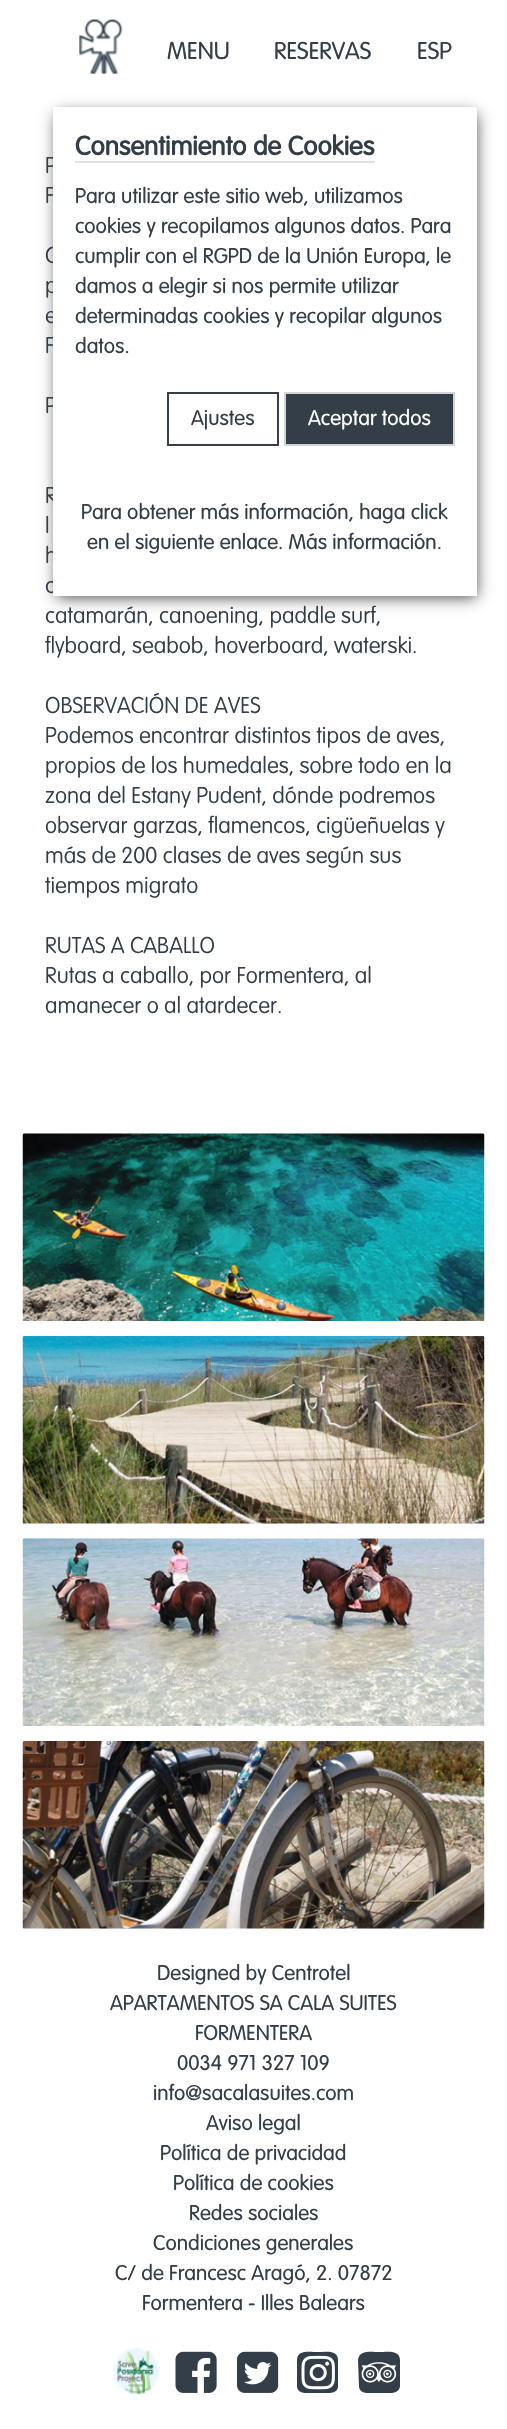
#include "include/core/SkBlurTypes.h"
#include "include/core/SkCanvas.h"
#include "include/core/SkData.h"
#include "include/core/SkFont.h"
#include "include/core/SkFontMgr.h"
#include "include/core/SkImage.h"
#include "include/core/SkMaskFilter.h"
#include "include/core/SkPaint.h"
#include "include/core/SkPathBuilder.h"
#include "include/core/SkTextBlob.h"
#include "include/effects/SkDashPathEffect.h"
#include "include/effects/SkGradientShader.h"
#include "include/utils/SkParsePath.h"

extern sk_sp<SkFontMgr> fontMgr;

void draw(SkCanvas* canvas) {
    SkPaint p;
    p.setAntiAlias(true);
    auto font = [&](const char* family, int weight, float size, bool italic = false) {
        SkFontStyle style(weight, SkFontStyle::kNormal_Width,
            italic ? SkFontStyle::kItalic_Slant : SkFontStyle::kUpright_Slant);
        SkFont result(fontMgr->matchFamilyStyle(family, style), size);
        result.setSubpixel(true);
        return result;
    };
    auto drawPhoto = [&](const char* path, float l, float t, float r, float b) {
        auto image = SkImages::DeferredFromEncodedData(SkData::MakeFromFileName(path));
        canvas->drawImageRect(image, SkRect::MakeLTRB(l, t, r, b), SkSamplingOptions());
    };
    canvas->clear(0xFFFFFFFF);
    drawPhoto("media/1.png", 79, 19, 123, 74);
    auto font1 = font("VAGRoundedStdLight", 400, 24);
    p.setColor(0xFF333E48);
    {
        const struct { const char* s; float x, y; } items[] = {
            {"MENU", 167, 59},
            {"RESERVAS", 274, 59},
            {"ESP", 417, 59},
        };
        for (auto [s, x, y] : items) {
            canvas->drawString(s, x, y, font1, p);
        }
    }
    p.setColor(0xBF000000);
    p.setMaskFilter(SkMaskFilter::MakeBlur(kNormal_SkBlurStyle, 7.5f));
    canvas->drawRect(SkRect::MakeLTRB(57, 114, 476, 597), p);
    p.setMaskFilter(nullptr);
    auto font2 = font("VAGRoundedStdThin", 400, 22.5f);
    p.setColor(0xFF333E48);
    {
        const struct { const char* s; float x, y; } items[] = {
            {"P", 45, 173},
            {"F", 45, 203},
            {"C", 45, 263},
            {"p", 45, 293},
            {"e", 45, 323},
            {"F", 45, 353},
            {"P", 45, 413},
            {"R", 45, 503},
            {"h", 45, 563},
            {"c", 45, 593},
        };
        for (auto [s, x, y] : items) {
            canvas->drawString(s, x, y, font2, p);
        }
    }
    p.setColor(0xFFFFFFFF);
    canvas->drawRect(SkRect::MakeLTRB(53, 107, 477, 596), p);
    auto font3 = font("VAGRoundedStdLight", 700, 26.25f);
    p.setColor(0xFF333E48);
    canvas->drawString("Consentimiento de Cookies", 75, 155, font3, p);
    p.setColor(0xFFE1E1E1);
    canvas->drawRect(SkRect::MakeLTRB(75, 161, 375, 163), p);
    auto font4 = font("VAGRoundedStdLight", 400, 21);
    p.setColor(0xFF333E48);
    {
        const struct { const char* s; float x, y; } items[] = {
            {"Para utilizar este sitio web, utilizamos", 75, 203},
            {"cookies y recopilamos algunos datos. Para", 75, 233},
            {"cumplir con el RGPD de la Unión Europa, le", 75, 263},
            {"damos a elegir si nos permite utilizar", 75, 293},
            {"determinadas cookies y recopilar algunos", 75, 323},
            {"datos.", 75, 353},
        };
        for (auto [s, x, y] : items) {
            canvas->drawString(s, x, y, font4, p);
        }
    }
    p.setStyle(SkPaint::kStroke_Style);
    p.setStrokeWidth(2);
    p.setColor(0xFF363F48);
    canvas->drawRect(SkRect::MakeLTRB(168, 393, 278, 445), p);
    p.setStyle(SkPaint::kFill_Style);
    p.setColor(0xFF333E48);
    canvas->drawString("Ajustes", 191, 425, font4, p);
    canvas->drawRect(SkRect::MakeLTRB(285, 393, 454, 445), p);
    p.setStyle(SkPaint::kStroke_Style);
    p.setColor(0xFFD3D3D3);
    canvas->drawRect(SkRect::MakeLTRB(285, 393, 454, 445), p);
    p.setStyle(SkPaint::kFill_Style);
    p.setColor(0xFFFFFFFF);
    canvas->drawString("Aceptar todos", 308, 425, font4, p);
    p.setColor(0xFF333E48);
    canvas->drawString("Para obtener más información, haga click", 81, 519, font4, p);
    canvas->drawString("en el siguiente enlace. Más información.", 87, 549, font4, p);
    {
        const struct { const char* s; float x, y; } items[] = {
            {"l", 45, 533},
            {"catamarán, canoening, paddle surf,", 45, 623},
            {"flyboard, seabob, hoverboard, waterski.", 45, 653},
            {"OBSERVACIÓN DE AVES", 45, 713},
            {"Podemos encontrar distintos tipos de aves,", 45, 743},
            {"propios de los humedales, sobre todo en la", 45, 773},
            {"zona del Estany Pudent, dónde podremos", 45, 803},
            {"observar garzas, flamencos, cigüeñuelas y", 45, 833},
            {"más de 200 clases de aves según sus", 45, 863},
            {"tiempos migrato", 45, 893},
            {"RUTAS A CABALLO", 45, 953},
            {"Rutas a caballo, por Formentera, al", 45, 983},
            {"amanecer o al atardecer.", 45, 1013},
        };
        for (auto [s, x, y] : items) {
            canvas->drawString(s, x, y, font2, p);
        }
    }
    drawPhoto("media/2.png", 22, 1133, 485, 1321);
    drawPhoto("media/3.png", 22, 1336, 485, 1524);
    drawPhoto("media/4.png", 22, 1538, 485, 1726);
    drawPhoto("media/5.png", 22, 1741, 485, 1929);
    {
        const struct { const char* s; float x, y; } items[] = {
            {"Designed by Centrotel", 157, 1980},
            {"APARTAMENTOS SA CALA SUITES", 110, 2010},
            {"FORMENTERA", 195, 2040},
            {"0034 971 327 109", 177, 2070},
            {"info@sacalasuites.com", 153, 2100},
            {"Aviso legal", 206, 2130},
            {"Política de privacidad", 160, 2160},
            {"Política de cookies", 173, 2190},
            {"Redes sociales", 189, 2220},
            {"Condiciones generales", 153, 2250},
            {"C/ de Francesc Aragó, 2. 07872", 115, 2280},
            {"Formentera - Illes Balears", 142, 2310},
        };
        for (auto [s, x, y] : items) {
            canvas->drawString(s, x, y, font4, p);
        }
    }
    drawPhoto("media/6.png", 113, 2347, 160, 2395);
    drawPhoto("media/7.png", 175, 2351, 217, 2393);
    drawPhoto("media/8.png", 237, 2351, 279, 2393);
    canvas->drawPath(SkPathBuilder().moveTo(338, 2360).lineTo(338, 2387).cubicTo(337, 2393, 331, 2393, 326, 2393).lineTo(309, 2393).cubicTo(304, 2393, 298, 2393, 297, 2387).lineTo(297, 2360).cubicTo(297, 2349, 311, 2352, 318, 2352).cubicTo(324, 2352, 338, 2349, 338, 2360).close().detach(), p);
    drawPhoto("media/9.png", 301, 2355, 335, 2390);
    canvas->drawPath(SkPathBuilder().moveTo(400, 2360).lineTo(400, 2387).cubicTo(398, 2393, 393, 2393, 388, 2393).lineTo(370, 2393).cubicTo(366, 2393, 360, 2393, 359, 2387).lineTo(358, 2360).cubicTo(359, 2349, 373, 2352, 379, 2352).cubicTo(385, 2352, 400, 2349, 400, 2360).close().detach(), p);
    drawPhoto("media/10.png", 361, 2362, 397, 2383);
}
